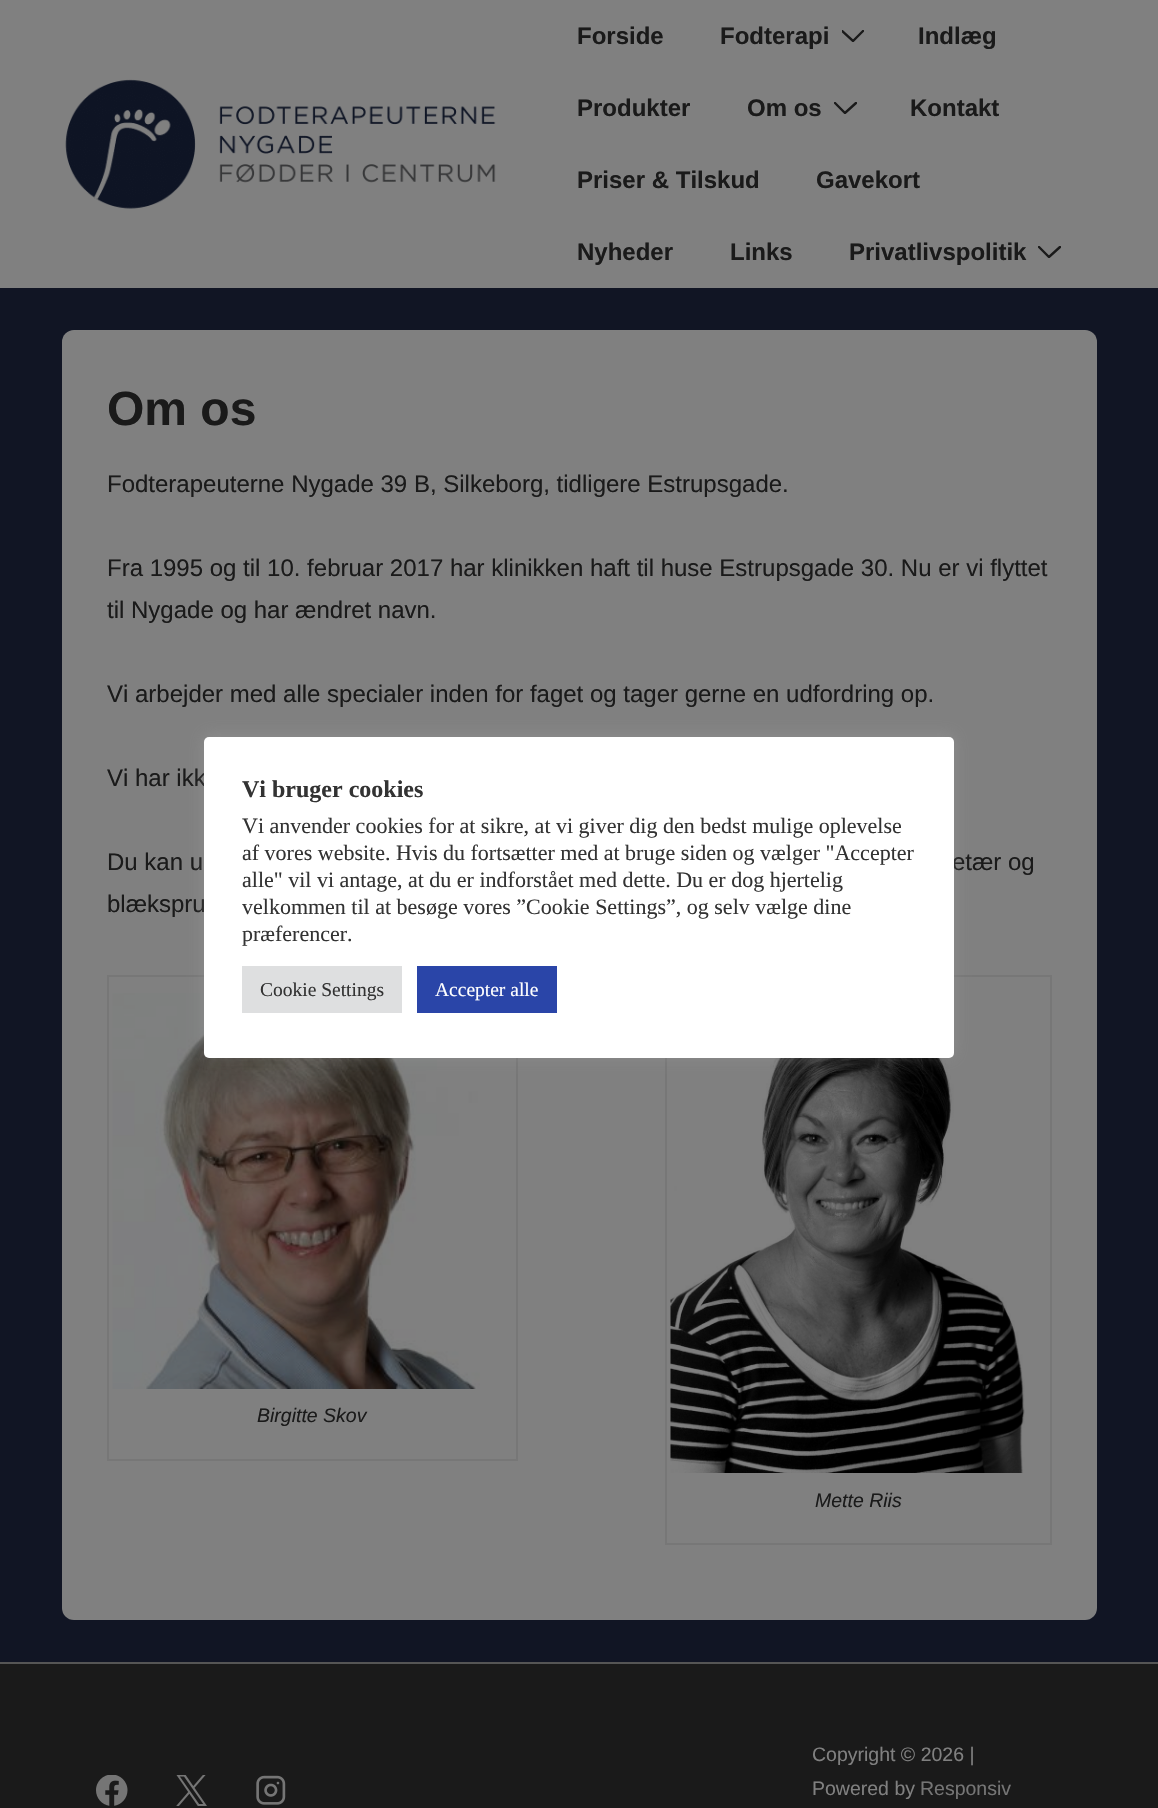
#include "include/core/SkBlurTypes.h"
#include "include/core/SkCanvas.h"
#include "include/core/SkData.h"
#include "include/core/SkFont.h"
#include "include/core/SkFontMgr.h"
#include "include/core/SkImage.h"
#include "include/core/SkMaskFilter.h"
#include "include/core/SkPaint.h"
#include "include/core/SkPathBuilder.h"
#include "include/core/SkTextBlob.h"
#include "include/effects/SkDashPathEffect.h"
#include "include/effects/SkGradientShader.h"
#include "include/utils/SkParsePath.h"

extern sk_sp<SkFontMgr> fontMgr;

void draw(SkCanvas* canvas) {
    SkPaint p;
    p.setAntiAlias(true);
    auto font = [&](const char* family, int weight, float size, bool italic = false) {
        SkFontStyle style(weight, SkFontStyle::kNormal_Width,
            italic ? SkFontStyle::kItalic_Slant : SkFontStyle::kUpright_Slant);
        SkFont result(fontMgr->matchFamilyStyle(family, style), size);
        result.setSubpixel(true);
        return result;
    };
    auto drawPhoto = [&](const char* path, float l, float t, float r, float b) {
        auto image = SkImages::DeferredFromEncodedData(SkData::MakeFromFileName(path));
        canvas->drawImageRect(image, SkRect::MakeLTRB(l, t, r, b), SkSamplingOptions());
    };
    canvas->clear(0xFF111524);
    p.setColor(0xFF808080);
    canvas->drawRect(SkRect::MakeLTRB(0, 0, 1158, 288), p);
    drawPhoto("media/1.png", 65, 79, 496, 209);
    auto font1 = font("Liberation Sans", 700, 24);
    p.setColor(0xFF1A1A1A);
    canvas->drawString("Forside", 577, 44, font1, p);
    canvas->drawString("Fodterapi", 720, 44, font1, p);
    canvas->save();
    canvas->clipRect(SkRect::MakeLTRB(842, 30, 864, 42));
    p.setStyle(SkPaint::kStroke_Style);
    p.setStrokeWidth(2.4f);
    p.setStrokeCap(SkPaint::kRound_Cap);
    canvas->drawPath(SkPathBuilder().moveTo(842, 31).lineTo(853, 41).lineTo(863, 31).detach(), p);
    canvas->restore();
    p.setStyle(SkPaint::kFill_Style);
    {
        const struct { const char* s; float x, y; } items[] = {
            {"Indlæg", 918, 44},
            {"Produkter", 577, 116},
            {"Om os", 747, 116},
        };
        for (auto [s, x, y] : items) {
            canvas->drawString(s, x, y, font1, p);
        }
    }
    canvas->save();
    canvas->clipRect(SkRect::MakeLTRB(834, 102, 857, 114));
    p.setStyle(SkPaint::kStroke_Style);
    canvas->drawPath(SkPathBuilder().moveTo(835, 103).lineTo(845, 113).lineTo(856, 103).detach(), p);
    canvas->restore();
    p.setStyle(SkPaint::kFill_Style);
    {
        const struct { const char* s; float x, y; } items[] = {
            {"Kontakt", 910, 116},
            {"Priser & Tilskud", 577, 188},
            {"Gavekort", 816, 188},
            {"Nyheder", 577, 260},
            {"Links", 730, 260},
            {"Privatlivspolitik", 849, 260},
        };
        for (auto [s, x, y] : items) {
            canvas->drawString(s, x, y, font1, p);
        }
    }
    canvas->save();
    canvas->clipRect(SkRect::MakeLTRB(1038, 246, 1061, 258));
    p.setStyle(SkPaint::kStroke_Style);
    canvas->drawPath(SkPathBuilder().moveTo(1039, 247).lineTo(1049, 257).lineTo(1060, 247).detach(), p);
    canvas->restore();
    p.setStyle(SkPaint::kFill_Style);
    p.setColor(0xFF808080);
    canvas->drawRoundRect(SkRect::MakeLTRB(62, 330, 1097, 1620), 12, 12, p);
    auto font2 = font("Liberation Sans", 700, 48);
    p.setColor(0xFF1A1A1A);
    canvas->drawString("Om os", 107, 425, font2, p);
    auto font3 = font("Liberation Sans", 400, 24);
    {
        const struct { const char* s; float x, y; } items[] = {
            {"Fodterapeuterne Nygade 39 B, Silkeborg, tidligere Estrupsgade.", 107, 492},
            {"Fra 1995 og til 10. februar 2017 har klinikken haft til huse Estrupsgade 30. Nu er vi flyttet", 107, 576},
            {"til Nygade og har ændret navn.", 107, 618},
            {"Vi arbejder med alle specialer inden for faget og tager gerne en udfordring op.", 107, 702},
            {"Vi har ikk", 107, 786},
            {"Du kan u", 107, 870},
            {"etær og", 952, 870},
            {"blækspru", 107, 912},
        };
        for (auto [s, x, y] : items) {
            canvas->drawString(s, x, y, font3, p);
        }
    }
    p.setStyle(SkPaint::kStroke_Style);
    p.setStrokeWidth(2);
    p.setStrokeCap(SkPaint::kButt_Cap);
    p.setColor(0xFF777777);
    canvas->drawRect(SkRect::MakeLTRB(108, 976, 517, 1460), p);
    drawPhoto("media/2.png", 112, 993, 480, 1389);
    auto font4 = font("Liberation Sans", 400, 19.5f, true);
    p.setStyle(SkPaint::kFill_Style);
    p.setColor(0xFF1A1A1A);
    canvas->drawString("Birgitte Skov", 257, 1422, font4, p);
    p.setStyle(SkPaint::kStroke_Style);
    p.setColor(0xFF777777);
    canvas->drawRect(SkRect::MakeLTRB(666, 976, 1051, 1544), p);
    drawPhoto("media/3.png", 670, 1012, 1025, 1473);
    p.setStyle(SkPaint::kFill_Style);
    p.setColor(0xFF1A1A1A);
    canvas->drawString("Mette Riis", 815, 1507, font4, p);
    canvas->drawRect(SkRect::MakeLTRB(0, 1664, 1158, 1808), p);
    p.setColor(0xFF555555);
    canvas->drawRect(SkRect::MakeLTRB(0, 1662, 1158, 1664), p);
    drawPhoto("media/4.png", 96, 1775, 128, 1806);
    drawPhoto("media/5.png", 176, 1775, 207, 1806);
    drawPhoto("media/6.png", 256, 1775, 286, 1805);
    auto font5 = font("Liberation Sans", 400, 19.5f);
    p.setColor(0xFF808080);
    canvas->drawString("Copyright © 2026 |", 812, 1761, font5, p);
    canvas->drawString("Powered by", 812, 1795, font5, p);
    p.setColor(0xFF757575);
    canvas->drawString("Responsiv", 920, 1795, font5, p);
    p.setColor(0x4DACABAB);
    p.setMaskFilter(SkMaskFilter::MakeBlur(kNormal_SkBlurStyle, 7.5f));
    canvas->drawRoundRect(SkRect::MakeLTRB(204, 735, 954, 1056), 5, 5, p);
    p.setMaskFilter(nullptr);
    p.setColor(0xFFFFFFFF);
    canvas->drawRoundRect(SkRect::MakeLTRB(204, 737, 954, 1058), 5, 5, p);
    auto font6 = font("Liberation Serif", 700, 24);
    p.setColor(0xFF333333);
    canvas->drawString("Vi bruger cookies", 242, 797, font6, p);
    auto font7 = font("Liberation Serif", 400, 22);
    {
        const struct { const char* s; float x, y; } items[] = {
            {"Vi anvender cookies for at sikre, at vi giver dig den bedst mulige oplevelse", 242, 833},
            {"af vores website. Hvis du fortsætter med at bruge siden og vælger \"Accepter", 242, 860},
            {"alle\" vil vi antage, at du er indforstået med dette. Du er dog hjertelig", 242, 887},
            {"velkommen til at besøge vores ”Cookie Settings”, og selv vælge dine", 242, 914},
            {"præferencer.", 242, 941},
        };
        for (auto [s, x, y] : items) {
            canvas->drawString(s, x, y, font7, p);
        }
    }
    p.setColor(0xFFDEDFE0);
    canvas->drawRect(SkRect::MakeLTRB(242, 966, 402, 1013), p);
    auto font8 = font("Liberation Serif", 400, 19.5f);
    p.setColor(0xFF333333);
    canvas->drawString("Cookie Settings", 260, 996, font8, p);
    p.setColor(0xFF2A45A8);
    canvas->drawRect(SkRect::MakeLTRB(417, 966, 557, 1013), p);
    p.setColor(0xFFFFFFFF);
    canvas->drawString("Accepter alle", 435, 996, font8, p);
}
